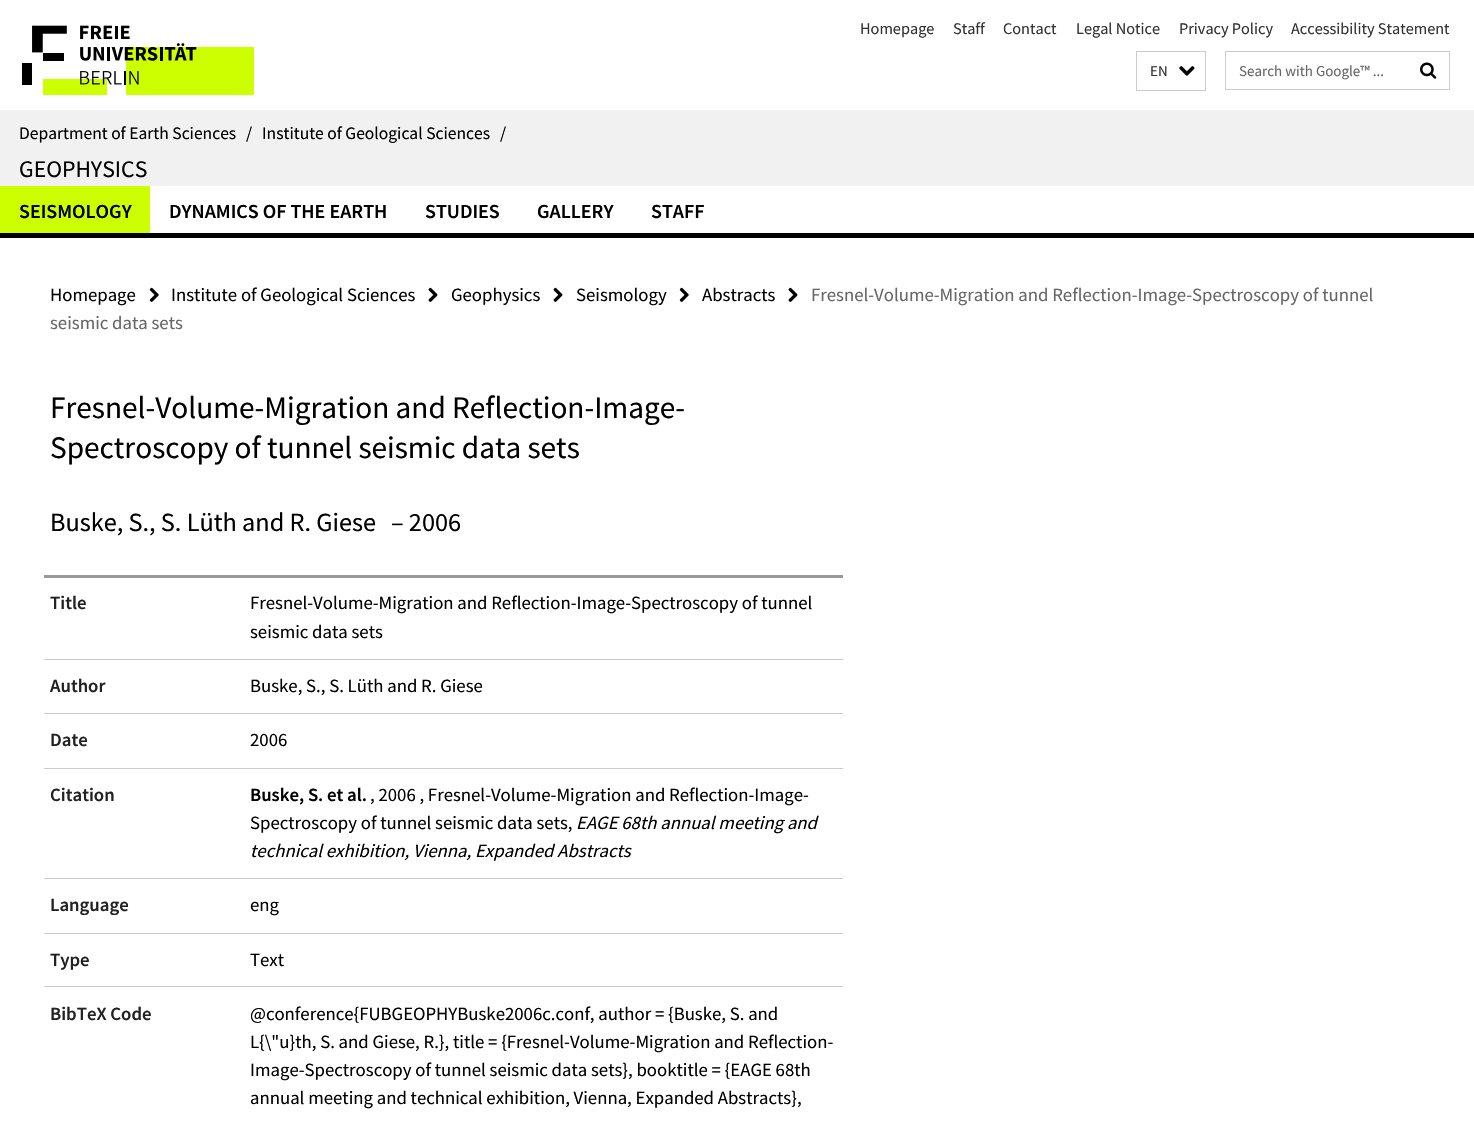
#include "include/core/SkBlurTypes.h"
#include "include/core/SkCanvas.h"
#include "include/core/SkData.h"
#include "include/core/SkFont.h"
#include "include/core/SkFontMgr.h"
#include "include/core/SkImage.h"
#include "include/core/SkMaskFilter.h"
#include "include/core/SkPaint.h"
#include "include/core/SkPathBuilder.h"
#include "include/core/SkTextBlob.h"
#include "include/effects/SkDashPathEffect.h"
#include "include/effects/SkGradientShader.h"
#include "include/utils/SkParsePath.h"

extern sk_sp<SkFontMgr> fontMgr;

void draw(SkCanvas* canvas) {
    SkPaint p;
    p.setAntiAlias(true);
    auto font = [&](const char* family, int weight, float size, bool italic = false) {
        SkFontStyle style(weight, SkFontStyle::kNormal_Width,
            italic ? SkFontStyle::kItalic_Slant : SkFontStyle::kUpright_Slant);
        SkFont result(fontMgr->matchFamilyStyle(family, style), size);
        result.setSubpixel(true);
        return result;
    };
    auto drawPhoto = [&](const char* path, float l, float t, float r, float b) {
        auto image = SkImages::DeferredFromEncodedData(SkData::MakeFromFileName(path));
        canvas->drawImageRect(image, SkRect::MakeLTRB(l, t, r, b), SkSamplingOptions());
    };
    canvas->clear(0xFFFFFFFF);
    drawPhoto("media/1.png", 22, 25, 254, 95);
    auto font1 = font("Source Sans Pro", 400, 16.25f);
    p.setColor(0xFF333333);
    {
        const struct { const char* s; float x, y; } items[] = {
            {"Homepage", 860, 34},
            {"Staff", 953, 34},
            {"Contact", 1003, 34},
            {"Legal Notice", 1076, 34},
            {"Privacy Policy", 1179, 34},
            {"Accessibility Statement", 1291, 34},
        };
        for (auto [s, x, y] : items) {
            canvas->drawString(s, x, y, font1, p);
        }
    }
    p.setStyle(SkPaint::kStroke_Style);
    p.setStrokeWidth(1);
    p.setColor(0xFFCCCCCC);
    canvas->drawRect(SkRect::MakeLTRB(1136.5f, 51.5f, 1205.5f, 90.5f), p);
    auto font2 = font("Source Sans Pro", 400, 15);
    p.setStyle(SkPaint::kFill_Style);
    p.setColor(0xFF333333);
    canvas->drawString("EN", 1150, 76, font2, p);
    drawPhoto("media/2.png", 1179, 66, 1195, 76);
    p.setStyle(SkPaint::kStroke_Style);
    p.setColor(0xFFCCCCCC);
    canvas->drawRect(SkRect::MakeLTRB(1225.5f, 51.5f, 1449.5f, 89.5f), p);
    p.setStyle(SkPaint::kFill_Style);
    p.setColor(0xFF666666);
    canvas->drawString("Search with Google™ ...", 1239, 76, font2, p);
    drawPhoto("media/3.png", 1420, 62, 1437, 79);
    p.setColor(0xFFF1F1F1);
    canvas->drawRect(SkRect::MakeLTRB(0, 110, 1474, 186), p);
    auto font3 = font("Source Sans Pro", 400, 17.5f);
    p.setColor(0xFF000000);
    {
        const struct { const char* s; float x, y; } items[] = {
            {"Department of Earth Sciences", 19, 139},
            {"/", 246, 139},
            {"Institute of Geological Sciences", 262, 139},
            {"/", 500, 139},
        };
        for (auto [s, x, y] : items) {
            canvas->drawString(s, x, y, font3, p);
        }
    }
    auto font4 = font("Source Sans Pro", 400, 23.75f);
    canvas->drawString("GEOPHYSICS", 19, 177, font4, p);
    canvas->drawRect(SkRect::MakeLTRB(0, 233, 1474, 238), p);
    p.setColor(0xFFCCFF00);
    canvas->drawRect(SkRect::MakeLTRB(0, 186, 150, 233), p);
    auto font5 = font("Source Sans Pro", 600, 20);
    p.setColor(0xFF000000);
    {
        const struct { const char* s; float x, y; } items[] = {
            {"SEISMOLOGY", 19, 218},
            {"DYNAMICS OF THE EARTH", 169, 218},
            {"STUDIES", 425, 218},
            {"GALLERY", 537, 218},
            {"STAFF", 651, 218},
        };
        for (auto [s, x, y] : items) {
            canvas->drawString(s, x, y, font5, p);
        }
    }
    auto font6 = font("Source Sans Pro", 400, 18.75f);
    canvas->drawString("Homepage", 50, 301, font6, p);
    drawPhoto("media/4.png", 149, 287, 159, 302);
    canvas->drawString("Institute of Geological Sciences", 171, 301, font6, p);
    drawPhoto("media/5.png", 428, 287, 438, 302);
    canvas->drawString("Geophysics", 451, 301, font6, p);
    drawPhoto("media/5.png", 553, 287, 563, 302);
    canvas->drawString("Seismology", 576, 301, font6, p);
    drawPhoto("media/4.png", 679, 287, 689, 302);
    canvas->drawString("Abstracts", 702, 301, font6, p);
    drawPhoto("media/5.png", 788, 287, 798, 302);
    p.setColor(0xFF666666);
    canvas->drawString("Fresnel-Volume-Migration and Reflection-Image-Spectroscopy of tunnel", 811, 301, font6, p);
    canvas->drawString("seismic data sets", 50, 329, font6, p);
    auto font7 = font("Source Sans Pro", 400, 31.25f);
    p.setColor(0xFF000000);
    canvas->drawString("Fresnel-Volume-Migration and Reflection-Image-", 50, 418, font7, p);
    canvas->drawString("Spectroscopy of tunnel seismic data sets", 50, 458, font7, p);
    auto font8 = font("Source Sans Pro", 400, 26.25f);
    canvas->drawString("Buske, S., S. Lüth and R. Giese", 50, 531, font8, p);
    canvas->drawString("– 2006", 391, 531, font8, p);
    p.setColor(0xFF999999);
    canvas->drawRect(SkRect::MakeLTRB(44, 575, 843, 578), p);
    auto font9 = font("Source Sans Pro", 600, 18.75f);
    p.setColor(0xFF222222);
    canvas->drawString("Title", 50, 609, font9, p);
    p.setColor(0xFF000000);
    canvas->drawString("Fresnel-Volume-Migration and Reflection-Image-Spectroscopy of tunnel", 250, 609, font6, p);
    canvas->drawString("seismic data sets", 250, 638, font6, p);
    p.setColor(0xFFCCCCCC);
    canvas->drawRect(SkRect::MakeLTRB(44, 659, 843, 660), p);
    p.setColor(0xFF222222);
    canvas->drawString("Author", 50, 692, font9, p);
    p.setColor(0xFF000000);
    canvas->drawString("Buske, S., S. Lüth and R. Giese", 250, 692, font6, p);
    p.setColor(0xFFCCCCCC);
    canvas->drawRect(SkRect::MakeLTRB(44, 713, 843, 714), p);
    p.setColor(0xFF222222);
    canvas->drawString("Date", 50, 746, font9, p);
    p.setColor(0xFF000000);
    canvas->drawString("2006", 250, 746, font6, p);
    p.setColor(0xFFCCCCCC);
    canvas->drawRect(SkRect::MakeLTRB(44, 768, 843, 769), p);
    p.setColor(0xFF222222);
    canvas->drawString("Citation", 50, 801, font9, p);
    p.setColor(0xFF000000);
    canvas->drawString("Buske, S. et al.", 250, 801, font9, p);
    canvas->drawString(", 2006 , Fresnel-Volume-Migration and Reflection-Image-", 370, 801, font6, p);
    canvas->drawString("Spectroscopy of tunnel seismic data sets,", 250, 829, font6, p);
    auto font10 = font("Source Sans Pro", 400, 18.75f, true);
    canvas->drawString("EAGE 68th annual meeting and", 576, 829, font10, p);
    canvas->drawString("technical exhibition, Vienna, Expanded Abstracts", 250, 857, font10, p);
    p.setColor(0xFFCCCCCC);
    canvas->drawRect(SkRect::MakeLTRB(44, 878, 843, 879), p);
    p.setColor(0xFF222222);
    canvas->drawString("Language", 50, 911, font9, p);
    p.setColor(0xFF000000);
    canvas->drawString("eng", 250, 911, font6, p);
    p.setColor(0xFFCCCCCC);
    canvas->drawRect(SkRect::MakeLTRB(44, 933, 843, 934), p);
    p.setColor(0xFF222222);
    canvas->drawString("Type", 50, 966, font9, p);
    p.setColor(0xFF000000);
    canvas->drawString("Text", 250, 966, font6, p);
    p.setColor(0xFFCCCCCC);
    canvas->drawRect(SkRect::MakeLTRB(44, 986, 843, 987), p);
    p.setColor(0xFF222222);
    canvas->drawString("BibTeX Code", 50, 1020, font9, p);
    p.setColor(0xFF000000);
    {
        const struct { const char* s; float x, y; } items[] = {
            {"@conference{FUBGEOPHYBuske2006c.conf, author = {Buske, S. and", 250, 1020},
            {"L{\\\"u}th, S. and Giese, R.}, title = {Fresnel-Volume-Migration and Reflection-", 250, 1048},
            {"Image-Spectroscopy of tunnel seismic data sets}, booktitle = {EAGE 68th", 250, 1076},
            {"annual meeting and technical exhibition, Vienna, Expanded Abstracts},", 250, 1104},
        };
        for (auto [s, x, y] : items) {
            canvas->drawString(s, x, y, font6, p);
        }
    }
}
